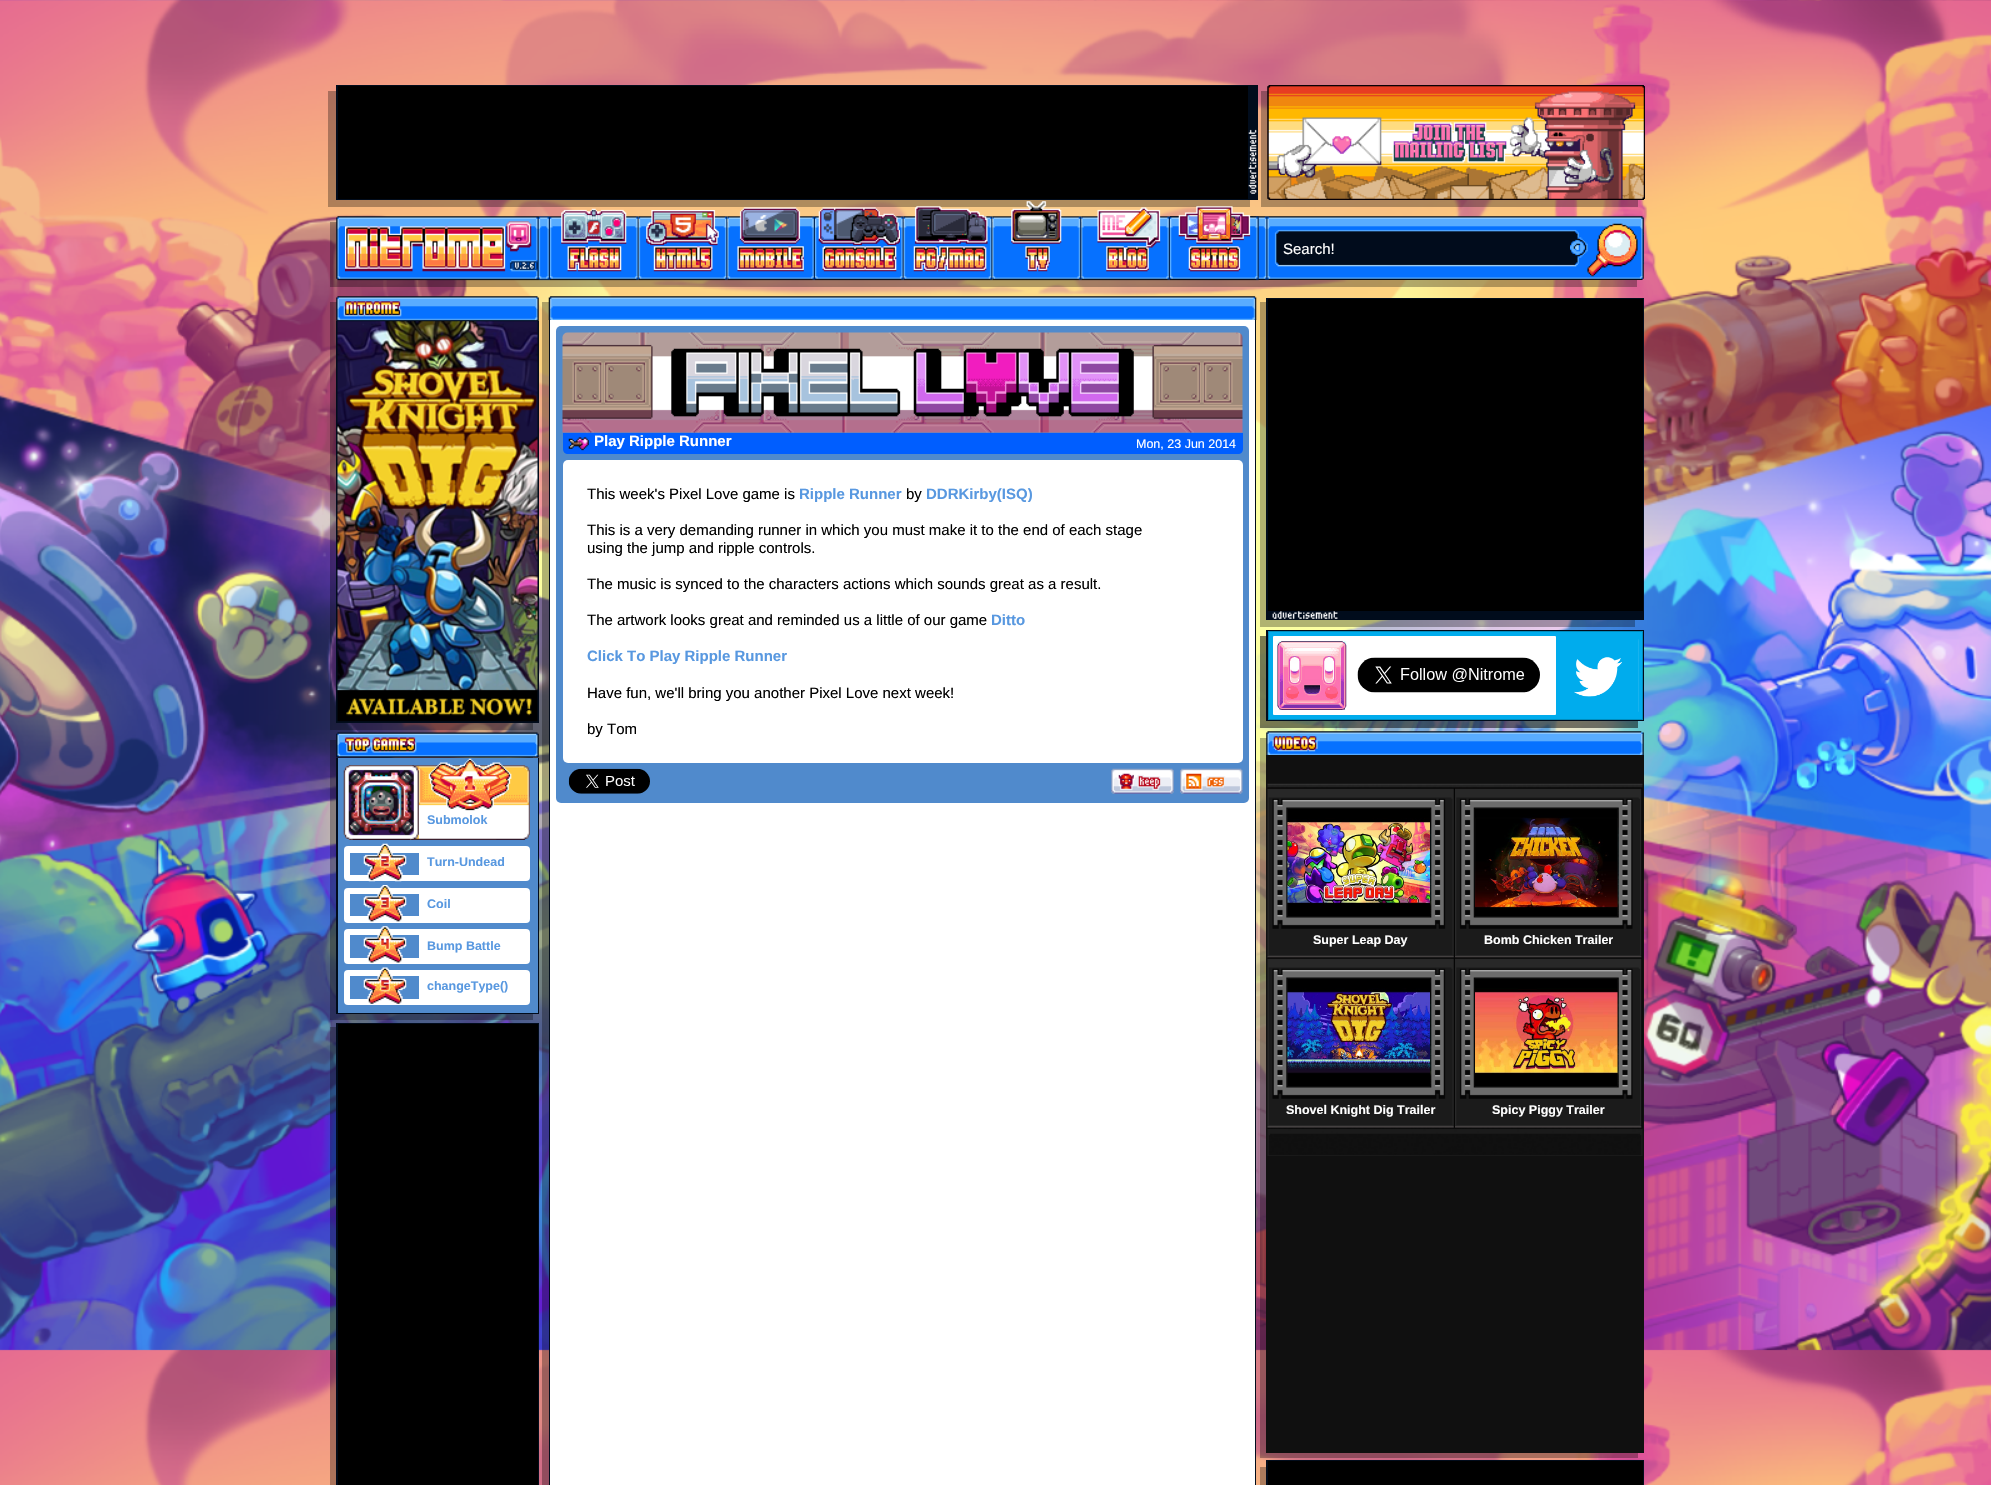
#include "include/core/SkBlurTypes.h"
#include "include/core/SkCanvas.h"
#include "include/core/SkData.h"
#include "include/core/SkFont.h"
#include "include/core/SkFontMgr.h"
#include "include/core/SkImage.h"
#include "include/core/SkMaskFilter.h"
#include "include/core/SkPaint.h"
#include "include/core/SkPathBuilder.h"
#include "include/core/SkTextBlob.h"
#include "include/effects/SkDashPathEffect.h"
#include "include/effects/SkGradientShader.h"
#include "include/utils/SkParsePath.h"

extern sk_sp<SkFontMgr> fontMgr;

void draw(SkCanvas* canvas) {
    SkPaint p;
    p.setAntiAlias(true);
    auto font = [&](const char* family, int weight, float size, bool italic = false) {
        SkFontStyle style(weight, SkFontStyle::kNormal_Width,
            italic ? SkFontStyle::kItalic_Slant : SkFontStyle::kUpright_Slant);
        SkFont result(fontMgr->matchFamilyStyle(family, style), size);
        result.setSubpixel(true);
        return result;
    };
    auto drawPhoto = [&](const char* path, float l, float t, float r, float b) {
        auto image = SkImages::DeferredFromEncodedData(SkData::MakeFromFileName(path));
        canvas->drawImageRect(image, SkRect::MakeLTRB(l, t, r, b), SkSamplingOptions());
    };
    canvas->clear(0xFFFFFFFF);
    drawPhoto("media/1.png", 0, 0, 1991, 1485);
    {
        const struct { float l, t, r, b; SkColor color; } items[] = {
            {328, 91, 1250, 207, 0x4D000000},
            {336, 85, 1258, 200, 0xFF010C1C},
            {1261, 91, 1638, 207, 0x4D000000},
        };
        for (auto [l, t, r, b, color] : items) {
            p.setColor(color);
            canvas->drawRect(SkRect::MakeLTRB(l, t, r, b), p);
        }
    }
    drawPhoto("media/2.png", 1267, 85, 1645, 200);
    drawPhoto("media/3.png", 1267, 85, 1645, 200);
    p.setColor(0xFF000000);
    canvas->drawRect(SkRect::MakeLTRB(338, 86, 1248, 199), p);
    drawPhoto("media/4.png", 1248, 129, 1257, 194);
    p.setColor(0x4D000000);
    canvas->drawRect(SkRect::MakeLTRB(330, 222, 1637, 287), p);
    drawPhoto("media/5.png", 336, 216, 550, 281);
    drawPhoto("media/14.png", 550, 216, 639, 281);
    drawPhoto("media/6.png", 561, 208, 627, 272);
    drawPhoto("media/15.png", 638, 216, 728, 281);
    drawPhoto("media/7.png", 646, 210, 719, 272);
    drawPhoto("media/16.png", 727, 216, 815, 281);
    drawPhoto("media/8.png", 737, 207, 804, 272);
    drawPhoto("media/17.png", 815, 216, 904, 281);
    drawPhoto("media/9.png", 818, 207, 900, 272);
    drawPhoto("media/18.png", 903, 216, 993, 281);
    drawPhoto("media/10.png", 913, 206, 988, 272);
    drawPhoto("media/20.png", 1081, 216, 1170, 281);
    drawPhoto("media/19.png", 992, 216, 1082, 281);
    drawPhoto("media/11.png", 1011, 201, 1062, 272);
    drawPhoto("media/12.png", 1097, 207, 1161, 272);
    drawPhoto("media/21.png", 1170, 216, 1254, 280);
    p.setColor(0xFF010C1C);
    canvas->drawRect(SkRect::MakeLTRB(1276, 231, 1576, 265), p);
    drawPhoto("media/25.png", 1570, 232, 1644, 264);
    drawPhoto("media/24.png", 1253, 216, 1644, 280);
    drawPhoto("media/23.png", 1170, 216, 1259, 281);
    drawPhoto("media/13.png", 1178, 206, 1251, 272);
    drawPhoto("media/22.png", 345, 221, 532, 272);
    auto font1 = font("Liberation Sans", 400, 15);
    p.setColor(0xFFFFFFFF);
    canvas->drawString("Search!", 1283, 254, font1, p);
    drawPhoto("media/26.png", 1587, 223, 1638, 277);
    p.setColor(0x4D000000);
    canvas->drawRect(SkRect::MakeLTRB(330, 302, 533, 730), p);
    drawPhoto("media/27.png", 336, 296, 539, 321);
    p.setColor(0xFF010C1C);
    canvas->drawRect(SkRect::MakeLTRB(336, 321, 539, 723), p);
    drawPhoto("media/28.png", 337, 321, 538, 722);
    p.setColor(0x4D000000);
    canvas->drawRect(SkRect::MakeLTRB(542, 302, 549, 1485), p);
    drawPhoto("media/29.png", 548, 296, 1257, 320);
    {
        const struct { float l, t, r, b; SkColor color; } items[] = {
            {1260, 302, 1635, 627, 0x4D000000},
            {1266, 298, 1644, 620, 0xFF010C1C},
            {1268, 299, 1643, 611, 0xFF000000},
            {549, 320, 1256, 1485, 0xFF010C1C},
            {550, 320, 1255, 1485, 0xFFFFFFFF},
        };
        for (auto [l, t, r, b, color] : items) {
            p.setColor(color);
            canvas->drawRect(SkRect::MakeLTRB(l, t, r, b), p);
        }
    }
    p.setColor(0xFF508ACC);
    canvas->drawRoundRect(SkRect::MakeLTRB(556, 326, 1249, 803), 5, 5, p);
    drawPhoto("media/30.png", 562, 332, 1243, 433);
    p.setColor(0xFF005EFF);
    canvas->drawPath(SkPathBuilder().moveTo(563, 433).lineTo(1243, 433).lineTo(1243, 449).cubicTo(1243, 452, 1241, 454, 1238, 454).lineTo(568, 454).cubicTo(565, 454, 563, 452, 563, 449).close().detach(), p);
    drawPhoto("media/31.png", 568, 437, 589, 451);
    auto font2 = font("Liberation Sans", 700, 15);
    p.setColor(0xFFFFFFFF);
    canvas->drawString("Play Ripple Runner", 594, 446, font2, p);
    auto font3 = font("Liberation Sans", 400, 12.5f);
    canvas->drawString("Mon, 23 Jun 2014", 1136, 448, font3, p);
    canvas->drawRoundRect(SkRect::MakeLTRB(563, 460, 1243, 763), 5, 5, p);
    p.setColor(0xFF000000);
    canvas->drawString("This week's Pixel Love game is", 587, 499, font1, p);
    p.setColor(0xFF5898E0);
    canvas->drawString("Ripple Runner", 799, 499, font2, p);
    p.setColor(0xFF000000);
    canvas->drawString("by", 906, 499, font1, p);
    p.setColor(0xFF5898E0);
    canvas->drawString("DDRKirby(ISQ)", 926, 499, font2, p);
    p.setColor(0xFF000000);
    {
        const struct { const char* s; float x, y; } items[] = {
            {"This is a very demanding runner in which you must make it to the end of each stage", 587, 535},
            {"using the jump and ripple controls.", 587, 553},
            {"The music is synced to the characters actions which sounds great as a result.", 587, 589},
            {"The artwork looks great and reminded us a little of our game", 587, 625},
        };
        for (auto [s, x, y] : items) {
            canvas->drawString(s, x, y, font1, p);
        }
    }
    p.setColor(0xFF5898E0);
    canvas->drawString("Ditto", 991, 625, font2, p);
    canvas->drawString("Click To Play Ripple Runner", 587, 661, font2, p);
    p.setColor(0xFF000000);
    canvas->drawString("Have fun, we'll bring you another Pixel Love next week!", 587, 698, font1, p);
    canvas->drawString("by Tom", 587, 734, font1, p);
    drawPhoto("media/32.png", 568, 768, 650, 794);
    drawPhoto("media/33.png", 1111, 768, 1174, 794);
    drawPhoto("media/34.png", 1180, 768, 1243, 794);
    drawPhoto("media/35.png", 1272, 611, 1338, 619);
    {
        const struct { float l, t, r, b; SkColor color; } items[] = {
            {1260, 636, 1638, 728, 0x4D000000},
            {1260, 636, 1638, 728, 0x4D000000},
            {1266, 630, 1644, 721, 0xFF010C1C},
        };
        for (auto [l, t, r, b, color] : items) {
            p.setColor(color);
            canvas->drawRect(SkRect::MakeLTRB(l, t, r, b), p);
        }
    }
    p.setColor(0xFF00ACED);
    canvas->drawRect(SkRect::MakeLTRB(1268.5f, 631.5f, 1642.5f, 719.5f), p);
    p.setStyle(SkPaint::kStroke_Style);
    p.setStrokeWidth(1);
    p.setColor(0xFF008CBD);
    canvas->drawRect(SkRect::MakeLTRB(1268.5f, 631.5f, 1642.5f, 719.5f), p);
    p.setStyle(SkPaint::kFill_Style);
    p.setColor(0xFFFFFFFF);
    canvas->drawRoundRect(SkRect::MakeLTRB(1273, 636, 1556, 715), 1, 1, p);
    drawPhoto("media/36.png", 1277, 641, 1347, 710);
    drawPhoto("media/37.png", 1357, 657, 1540, 693);
    drawPhoto("media/38.png", 1574, 639, 1639, 712);
    p.setColor(0x4D000000);
    canvas->drawRect(SkRect::MakeLTRB(330, 740, 533, 1020), p);
    canvas->drawRect(SkRect::MakeLTRB(1260, 738, 1638, 1458), p);
    drawPhoto("media/39.png", 336, 732, 539, 758);
    p.setColor(0xFF010C1C);
    canvas->drawRect(SkRect::MakeLTRB(336, 758, 539, 1014), p);
    p.setColor(0xFF508ACC);
    canvas->drawRect(SkRect::MakeLTRB(338, 758, 538, 1013), p);
    drawPhoto("media/41.png", 343, 765, 530, 840);
    drawPhoto("media/40.png", 428, 758, 512, 811);
    drawPhoto("media/42.png", 343, 765, 419, 840);
    auto font4 = font("Liberation Sans", 700, 12.5f);
    p.setColor(0xFF5898E0);
    canvas->drawString("Submolok", 427, 824, font4, p);
    p.setColor(0xFFFFFFFF);
    canvas->drawRoundRect(SkRect::MakeLTRB(344, 846, 530, 881), 4, 4, p);
    p.setColor(0xFF508ACC);
    canvas->drawRect(SkRect::MakeLTRB(350, 853, 419, 875), p);
    drawPhoto("media/43.png", 363, 843, 407, 882);
    p.setColor(0xFF5898E0);
    canvas->drawString("Turn-Undead", 427, 866, font4, p);
    p.setColor(0xFFFFFFFF);
    canvas->drawRoundRect(SkRect::MakeLTRB(344, 888, 530, 923), 4, 4, p);
    p.setColor(0xFF508ACC);
    canvas->drawRect(SkRect::MakeLTRB(350, 894, 419, 916), p);
    drawPhoto("media/44.png", 363, 885, 407, 922);
    p.setColor(0xFF5898E0);
    canvas->drawString("Coil", 427, 908, font4, p);
    p.setColor(0xFFFFFFFF);
    canvas->drawRoundRect(SkRect::MakeLTRB(344, 929, 530, 964), 4, 4, p);
    p.setColor(0xFF508ACC);
    canvas->drawRect(SkRect::MakeLTRB(350, 935, 419, 958), p);
    drawPhoto("media/45.png", 363, 926, 407, 963);
    p.setColor(0xFF5898E0);
    canvas->drawString("Bump Battle", 427, 950, font4, p);
    p.setColor(0xFFFFFFFF);
    canvas->drawRoundRect(SkRect::MakeLTRB(344, 970, 530, 1005), 4, 4, p);
    p.setColor(0xFF508ACC);
    canvas->drawRect(SkRect::MakeLTRB(350, 976, 419, 999), p);
    drawPhoto("media/46.png", 363, 967, 407, 1004);
    p.setColor(0xFF5898E0);
    canvas->drawString("changeType()", 427, 990, font4, p);
    {
        const struct { float l, t, r, b; SkColor color; } items[] = {
            {330, 1027, 336, 1485, 0x4D000000},
            {336, 1023, 539, 1485, 0xFF010C1C},
            {338, 1024, 538, 1485, 0xFF000000},
        };
        for (auto [l, t, r, b, color] : items) {
            p.setColor(color);
            canvas->drawRect(SkRect::MakeLTRB(l, t, r, b), p);
        }
    }
    drawPhoto("media/47.png", 1266, 731, 1644, 755);
    drawPhoto("media/48.png", 1272, 736, 1318, 752);
    p.setColor(0xFF101010);
    canvas->drawRect(SkRect::MakeLTRB(1266, 755, 1644, 1453), p);
    drawPhoto("media/49.png", 1267, 783, 1643, 788);
    drawPhoto("media/50.png", 1267, 787, 1455, 958);
    drawPhoto("media/51.png", 1287, 809, 1430, 916);
    p.setColor(0xFFFFFFFF);
    canvas->drawString("Super Leap Day", 1313, 944, font4, p);
    drawPhoto("media/52.png", 1455, 787, 1643, 958);
    drawPhoto("media/53.png", 1475, 809, 1618, 916);
    canvas->drawString("Bomb Chicken Trailer", 1484, 944, font4, p);
    drawPhoto("media/58.png", 1267, 1127, 1643, 1156);
    drawPhoto("media/54.png", 1267, 957, 1455, 1128);
    drawPhoto("media/55.png", 1287, 979, 1430, 1086);
    canvas->drawString("Shovel Knight Dig Trailer", 1286, 1114, font4, p);
    drawPhoto("media/56.png", 1455, 957, 1643, 1128);
    drawPhoto("media/57.png", 1475, 979, 1618, 1086);
    canvas->drawString("Spicy Piggy Trailer", 1492, 1114, font4, p);
    {
        const struct { float l, t, r, b; SkColor color; } items[] = {
            {1260, 1467, 1266, 1485, 0x4D000000},
            {1266, 1460, 1644, 1485, 0xFF010C1C},
            {1268, 1461, 1643, 1485, 0xFF000000},
        };
        for (auto [l, t, r, b, color] : items) {
            p.setColor(color);
            canvas->drawRect(SkRect::MakeLTRB(l, t, r, b), p);
        }
    }
}
